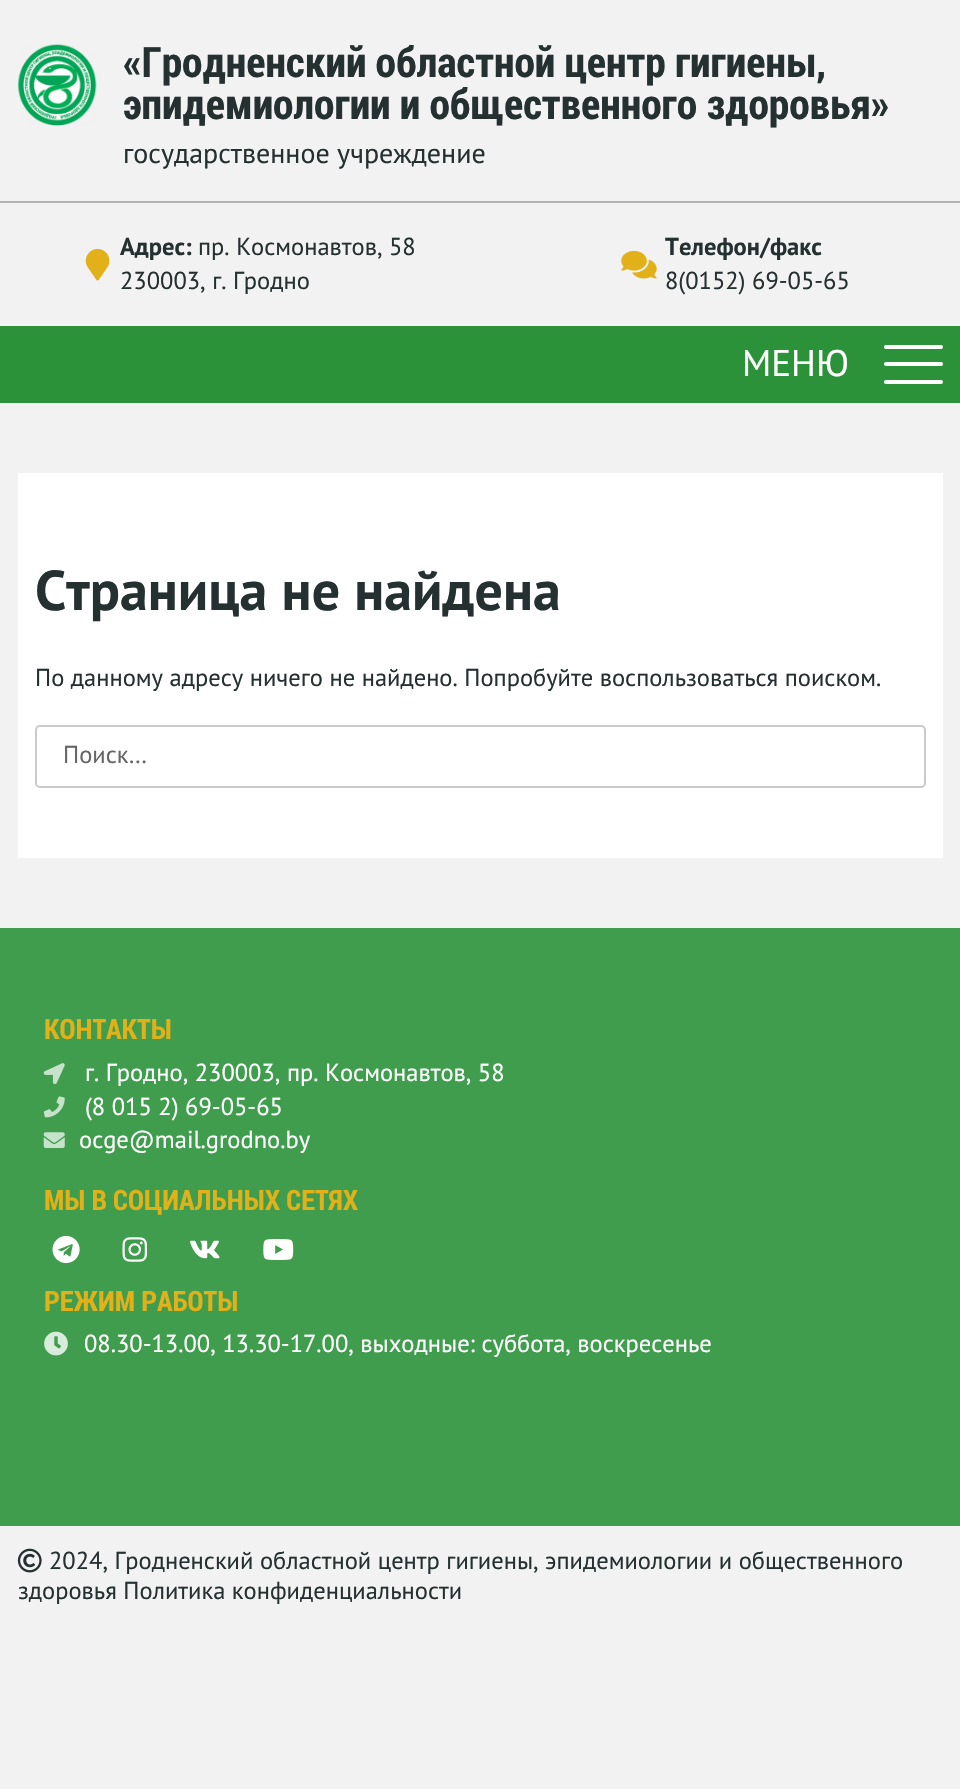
#include "include/core/SkBlurTypes.h"
#include "include/core/SkCanvas.h"
#include "include/core/SkData.h"
#include "include/core/SkFont.h"
#include "include/core/SkFontMgr.h"
#include "include/core/SkImage.h"
#include "include/core/SkMaskFilter.h"
#include "include/core/SkPaint.h"
#include "include/core/SkPathBuilder.h"
#include "include/core/SkTextBlob.h"
#include "include/effects/SkDashPathEffect.h"
#include "include/effects/SkGradientShader.h"
#include "include/utils/SkParsePath.h"

extern sk_sp<SkFontMgr> fontMgr;

void draw(SkCanvas* canvas) {
    SkPaint p;
    p.setAntiAlias(true);
    auto font = [&](const char* family, int weight, float size, bool italic = false) {
        SkFontStyle style(weight, SkFontStyle::kNormal_Width,
            italic ? SkFontStyle::kItalic_Slant : SkFontStyle::kUpright_Slant);
        SkFont result(fontMgr->matchFamilyStyle(family, style), size);
        result.setSubpixel(true);
        return result;
    };
    auto drawPhoto = [&](const char* path, float l, float t, float r, float b) {
        auto image = SkImages::DeferredFromEncodedData(SkData::MakeFromFileName(path));
        canvas->drawImageRect(image, SkRect::MakeLTRB(l, t, r, b), SkSamplingOptions());
    };
    canvas->clear(0xFFF2F2F2);
    p.setColor(0xFFB2B2B2);
    canvas->drawRect(SkRect::MakeLTRB(0, 201, 960, 203), p);
    drawPhoto("media/1.png", 17, 44, 97, 126);
    auto font1 = font("Roboto Condensed", 700, 42);
    p.setColor(0xFF253031);
    canvas->drawString("«Гродненский областной центр гигиены,", 123, 77, font1, p);
    canvas->drawString("эпидемиологии и общественного здоровья»", 123, 119, font1, p);
    auto font2 = font("PT Sans", 400, 28);
    canvas->drawString("государственное учреждение", 123, 163, font2, p);
    drawPhoto("media/2.png", 85, 248, 110, 281);
    auto font3 = font("PT Sans", 700, 24.5f);
    canvas->drawString("Адрес:", 120, 255, font3, p);
    auto font4 = font("PT Sans", 400, 24.5f);
    canvas->drawString("пр. Космонавтов, 58", 198, 255, font4, p);
    canvas->drawString("230003, г. Гродно", 120, 289, font4, p);
    drawPhoto("media/3.png", 621, 250, 657, 279);
    canvas->drawString("Телефон/факс", 665, 255, font3, p);
    canvas->drawString("8(0152) 69-05-65", 665, 289, font4, p);
    p.setColor(0xFF2C923A);
    canvas->drawRect(SkRect::MakeLTRB(0, 326, 960, 403), p);
    auto font5 = font("PT Sans", 400, 37);
    p.setColor(0xFFFFFFFF);
    canvas->drawString("МЕНЮ", 742, 376, font5, p);
    canvas->drawRoundRect(SkRect::MakeLTRB(884, 362, 943, 366), 2, 2, p);
    canvas->drawRoundRect(SkRect::MakeLTRB(884, 345, 943, 349), 2, 2, p);
    canvas->drawRoundRect(SkRect::MakeLTRB(884, 380, 943, 384), 2, 2, p);
    canvas->drawRect(SkRect::MakeLTRB(18, 473, 943, 858), p);
    auto font6 = font("PT Sans", 700, 56);
    p.setColor(0xFF253031);
    canvas->drawString("Страница не найдена", 35, 610, font6, p);
    canvas->drawString("По данному адресу ничего не найдено. Попробуйте воспользоваться поиском.", 35, 686, font4, p);
    p.setStyle(SkPaint::kStroke_Style);
    p.setStrokeWidth(2);
    p.setColor(0xFFCACACA);
    canvas->drawRoundRect(SkRect::MakeLTRB(36, 726, 925, 787), 4, 4, p);
    p.setStyle(SkPaint::kFill_Style);
    p.setColor(0xFF666666);
    canvas->drawString("Поиск…", 63, 763, font4, p);
    p.setColor(0xFF409D4D);
    canvas->drawRect(SkRect::MakeLTRB(0, 928, 960, 1526), p);
    auto font7 = font("Roboto Condensed", 700, 28);
    p.setColor(0xFFE2B11A);
    canvas->drawString("КОНТАКТЫ", 44, 1039, font7, p);
    drawPhoto("media/4.png", 43, 1063, 65, 1085);
    p.setColor(0xFFFFFFFF);
    canvas->drawString("г. Гродно, 230003, пр. Космонавтов, 58", 85, 1081, font4, p);
    drawPhoto("media/5.png", 43, 1096, 65, 1118);
    canvas->drawString("(8 015 2) 69-05-65", 85, 1115, font4, p);
    drawPhoto("media/6.png", 43, 1132, 65, 1148);
    canvas->drawString("ocge@mail.grodno.by", 79, 1148, font4, p);
    p.setColor(0xFFE2B11A);
    canvas->drawString("МЫ В СОЦИАЛЬНЫХ СЕТЯХ", 44, 1210, font7, p);
    drawPhoto("media/7.png", 52, 1235, 80, 1264);
    drawPhoto("media/8.png", 122, 1237, 147, 1262);
    drawPhoto("media/9.png", 190, 1240, 220, 1259);
    drawPhoto("media/10.png", 263, 1239, 294, 1260);
    canvas->drawString("РЕЖИМ РАБОТЫ", 44, 1311, font7, p);
    drawPhoto("media/11.png", 44, 1331, 68, 1356);
    p.setColor(0xFFFFFFFF);
    canvas->drawString("08.30-13.00, 13.30-17.00, выходные: суббота, воскресенье", 84, 1352, font4, p);
    drawPhoto("media/12.png", 17, 1548, 42, 1573);
    p.setColor(0xFF253031);
    canvas->drawString("2024, Гродненский областной центр гигиены, эпидемиологии и общественного", 49, 1569, font4, p);
    canvas->drawString("здоровья Политика конфиденциальности", 18, 1599, font4, p);
}
